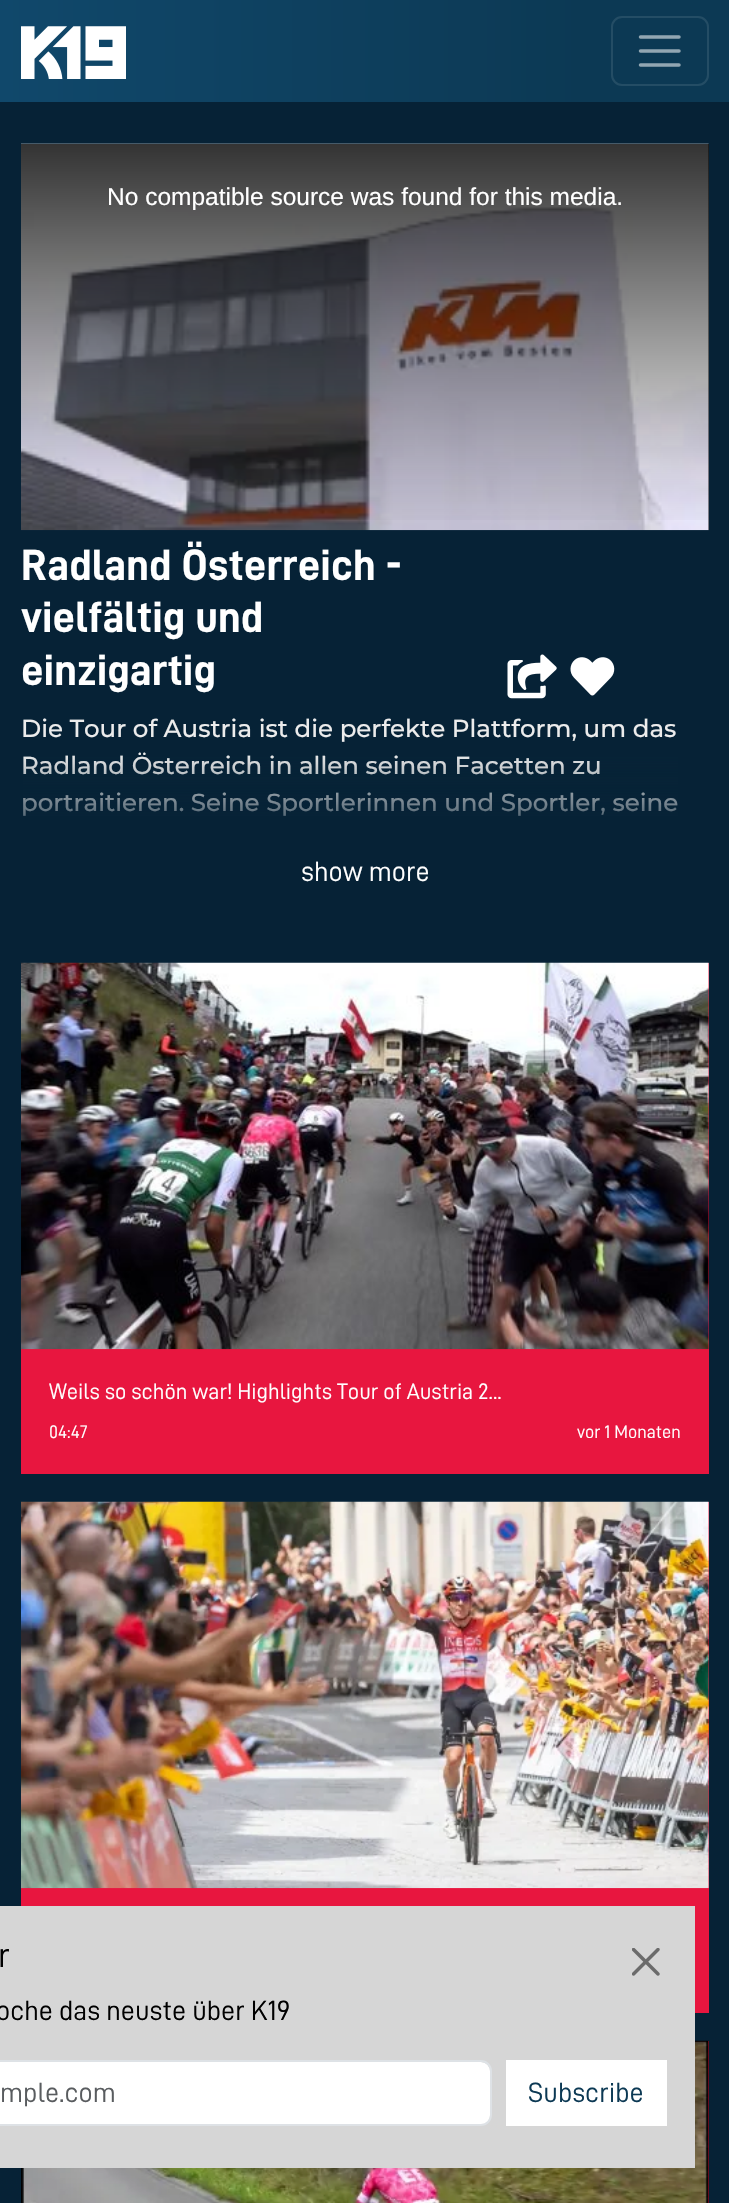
#include "include/core/SkBlurTypes.h"
#include "include/core/SkCanvas.h"
#include "include/core/SkData.h"
#include "include/core/SkFont.h"
#include "include/core/SkFontMgr.h"
#include "include/core/SkImage.h"
#include "include/core/SkMaskFilter.h"
#include "include/core/SkPaint.h"
#include "include/core/SkPathBuilder.h"
#include "include/core/SkTextBlob.h"
#include "include/effects/SkDashPathEffect.h"
#include "include/effects/SkGradientShader.h"
#include "include/utils/SkParsePath.h"

extern sk_sp<SkFontMgr> fontMgr;

void draw(SkCanvas* canvas) {
    SkPaint p;
    p.setAntiAlias(true);
    auto font = [&](const char* family, int weight, float size, bool italic = false) {
        SkFontStyle style(weight, SkFontStyle::kNormal_Width,
            italic ? SkFontStyle::kItalic_Slant : SkFontStyle::kUpright_Slant);
        SkFont result(fontMgr->matchFamilyStyle(family, style), size);
        result.setSubpixel(true);
        return result;
    };
    auto drawPhoto = [&](const char* path, float l, float t, float r, float b) {
        auto image = SkImages::DeferredFromEncodedData(SkData::MakeFromFileName(path));
        canvas->drawImageRect(image, SkRect::MakeLTRB(l, t, r, b), SkSamplingOptions());
    };
    canvas->clear(0xFF062236);
    {
        const SkColor colors[] = {0xFF10486B, 0xFF0C3954};
        const float stops[] = {0, 0.8f};
        const SkPoint ends[] = {{0, 51}, {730, 51}};
        p.setShader(SkGradientShader::MakeLinear(ends, colors, stops, 2, SkTileMode::kClamp));
        p.setAlpha(255);
    }
    canvas->drawRect(SkRect::MakeLTRB(0, 0, 729, 102), p);
    drawPhoto("media/1.png", 21, 26, 126, 79);
    p.setStyle(SkPaint::kStroke_Style);
    p.setStrokeWidth(2);
    p.setShader(nullptr);
    p.setColor(0xFF244D65);
    canvas->drawRoundRect(SkRect::MakeLTRB(612, 17, 708, 85), 10, 10, p);
    p.setStrokeWidth(3.5f);
    p.setStrokeCap(SkPaint::kRound_Cap);
    p.setColor(0xFF92A6B2);
    canvas->drawPath(SkPathBuilder().moveTo(640.5f, 37).lineTo(679, 37).moveTo(640.5f, 51).lineTo(679, 51).moveTo(640.5f, 65).lineTo(679, 65).detach(), p);
    p.setStyle(SkPaint::kFill_Style);
    p.setColor(0xFF000000);
    canvas->drawRect(SkRect::MakeLTRB(708, 144, 709, 530), p);
    drawPhoto("media/2.png", 21, 143, 709, 531);
    {
        const SkColor colors[] = {0xCC000000, 0x00000000};
        const float stops[] = {0, 1};
        const SkPoint ends[] = {{365, 143}, {365, 530}};
        p.setShader(SkGradientShader::MakeLinear(ends, colors, stops, 2, SkTileMode::kClamp));
        p.setAlpha(255);
    }
    canvas->drawRect(SkRect::MakeLTRB(21, 144, 709, 520), p);
    auto font1 = font("Liberation Sans", 400, 24.5f);
    p.setShader(nullptr);
    p.setColor(0xFFFFFFFF);
    canvas->drawString("No compatible source was found for this media.", 107, 205, font1, p);
    auto font2 = font("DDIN", 700, 43.75f);
    {
        const struct { const char* s; float x, y; } items[] = {
            {"Radland Österreich -", 21, 580},
            {"vielfältig und", 21, 632},
            {"einzigartig", 21, 685},
        };
        for (auto [s, x, y] : items) {
            canvas->drawString(s, x, y, font2, p);
        }
    }
    drawPhoto("media/3.png", 507, 654, 557, 699);
    drawPhoto("media/4.png", 570, 657, 615, 696);
    auto font3 = font("Montserrat", 500, 24.5f);
    p.setColor(0xFFECECEC);
    {
        const struct { const char* s; float x, y; } items[] = {
            {"Die Tour of Austria ist die perfekte Plattform, um das", 21, 737},
            {"Radland Österreich in allen seinen Facetten zu", 21, 774},
            {"portraitieren. Seine Sportlerinnen und Sportler, seine", 21, 811},
        };
        for (auto [s, x, y] : items) {
            canvas->drawString(s, x, y, font3, p);
        }
    }
    {
        const SkColor colors[] = {0xFF062236, 0x00062236};
        const float stops[] = {0, 0.7f};
        const SkPoint ends[] = {{365, 851}, {365, 711}};
        p.setShader(SkGradientShader::MakeLinear(ends, colors, stops, 2, SkTileMode::kClamp));
        p.setAlpha(255);
    }
    canvas->drawRect(SkRect::MakeLTRB(23, 755, 678, 816), p);
    auto font4 = font("DDIN", 400, 28);
    p.setShader(nullptr);
    p.setColor(0xFFFFFFFF);
    canvas->drawString("show more", 301, 881, font4, p);
    p.setColor(0xFFE8163F);
    canvas->drawRect(SkRect::MakeLTRB(21, 963, 709, 1474), p);
    drawPhoto("media/5.png", 21, 962, 709, 1350);
    auto font5 = font("DDIN", 400, 22.4f);
    p.setColor(0xFFFFFFFF);
    canvas->drawString("Weils so schön war! Highlights Tour of Austria 2...", 49, 1399, font5, p);
    auto font6 = font("DDIN", 400, 18.25f);
    canvas->drawString("04:47", 49, 1438, font6, p);
    canvas->drawString("vor 1 Monaten", 577, 1438, font6, p);
    p.setColor(0xFFE8163F);
    canvas->drawRect(SkRect::MakeLTRB(21, 1502, 709, 2013), p);
    drawPhoto("media/6.png", 21, 1501, 709, 1889);
    canvas->drawRect(SkRect::MakeLTRB(708, 2041, 709, 2203), p);
    drawPhoto("media/7.png", 21, 2040, 709, 2203);
    p.setColor(0xFFD6D6D6);
    canvas->drawRect(SkRect::MakeLTRB(0, 1906, 695, 2168), p);
    auto font7 = font("DDIN", 400, 35);
    p.setColor(0xFF000000);
    canvas->drawString("r", -2, 1967, font7, p);
    drawPhoto("media/8.png", 632, 1948, 660, 1976);
    canvas->drawString("oche das neuste über K19", -4, 2020, font4, p);
    p.setColor(0xFFFFFFFF);
    canvas->drawRoundRect(SkRect::MakeLTRB(-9, 2062, 490, 2125), 9, 9, p);
    p.setStyle(SkPaint::kStroke_Style);
    p.setStrokeWidth(2);
    p.setStrokeCap(SkPaint::kButt_Cap);
    p.setColor(0xFFDEE2E6);
    canvas->drawRoundRect(SkRect::MakeLTRB(-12, 2061, 491, 2125), 10, 10, p);
    p.setStyle(SkPaint::kFill_Style);
    p.setColor(0xFF595C5F);
    canvas->drawString("mple.com", 0, 2102, font4, p);
    p.setColor(0xFFFFFFFF);
    canvas->drawRect(SkRect::MakeLTRB(506, 2060, 667, 2126), p);
    p.setColor(0xFF0C3954);
    canvas->drawString("Subscribe", 528, 2102, font4, p);
}
